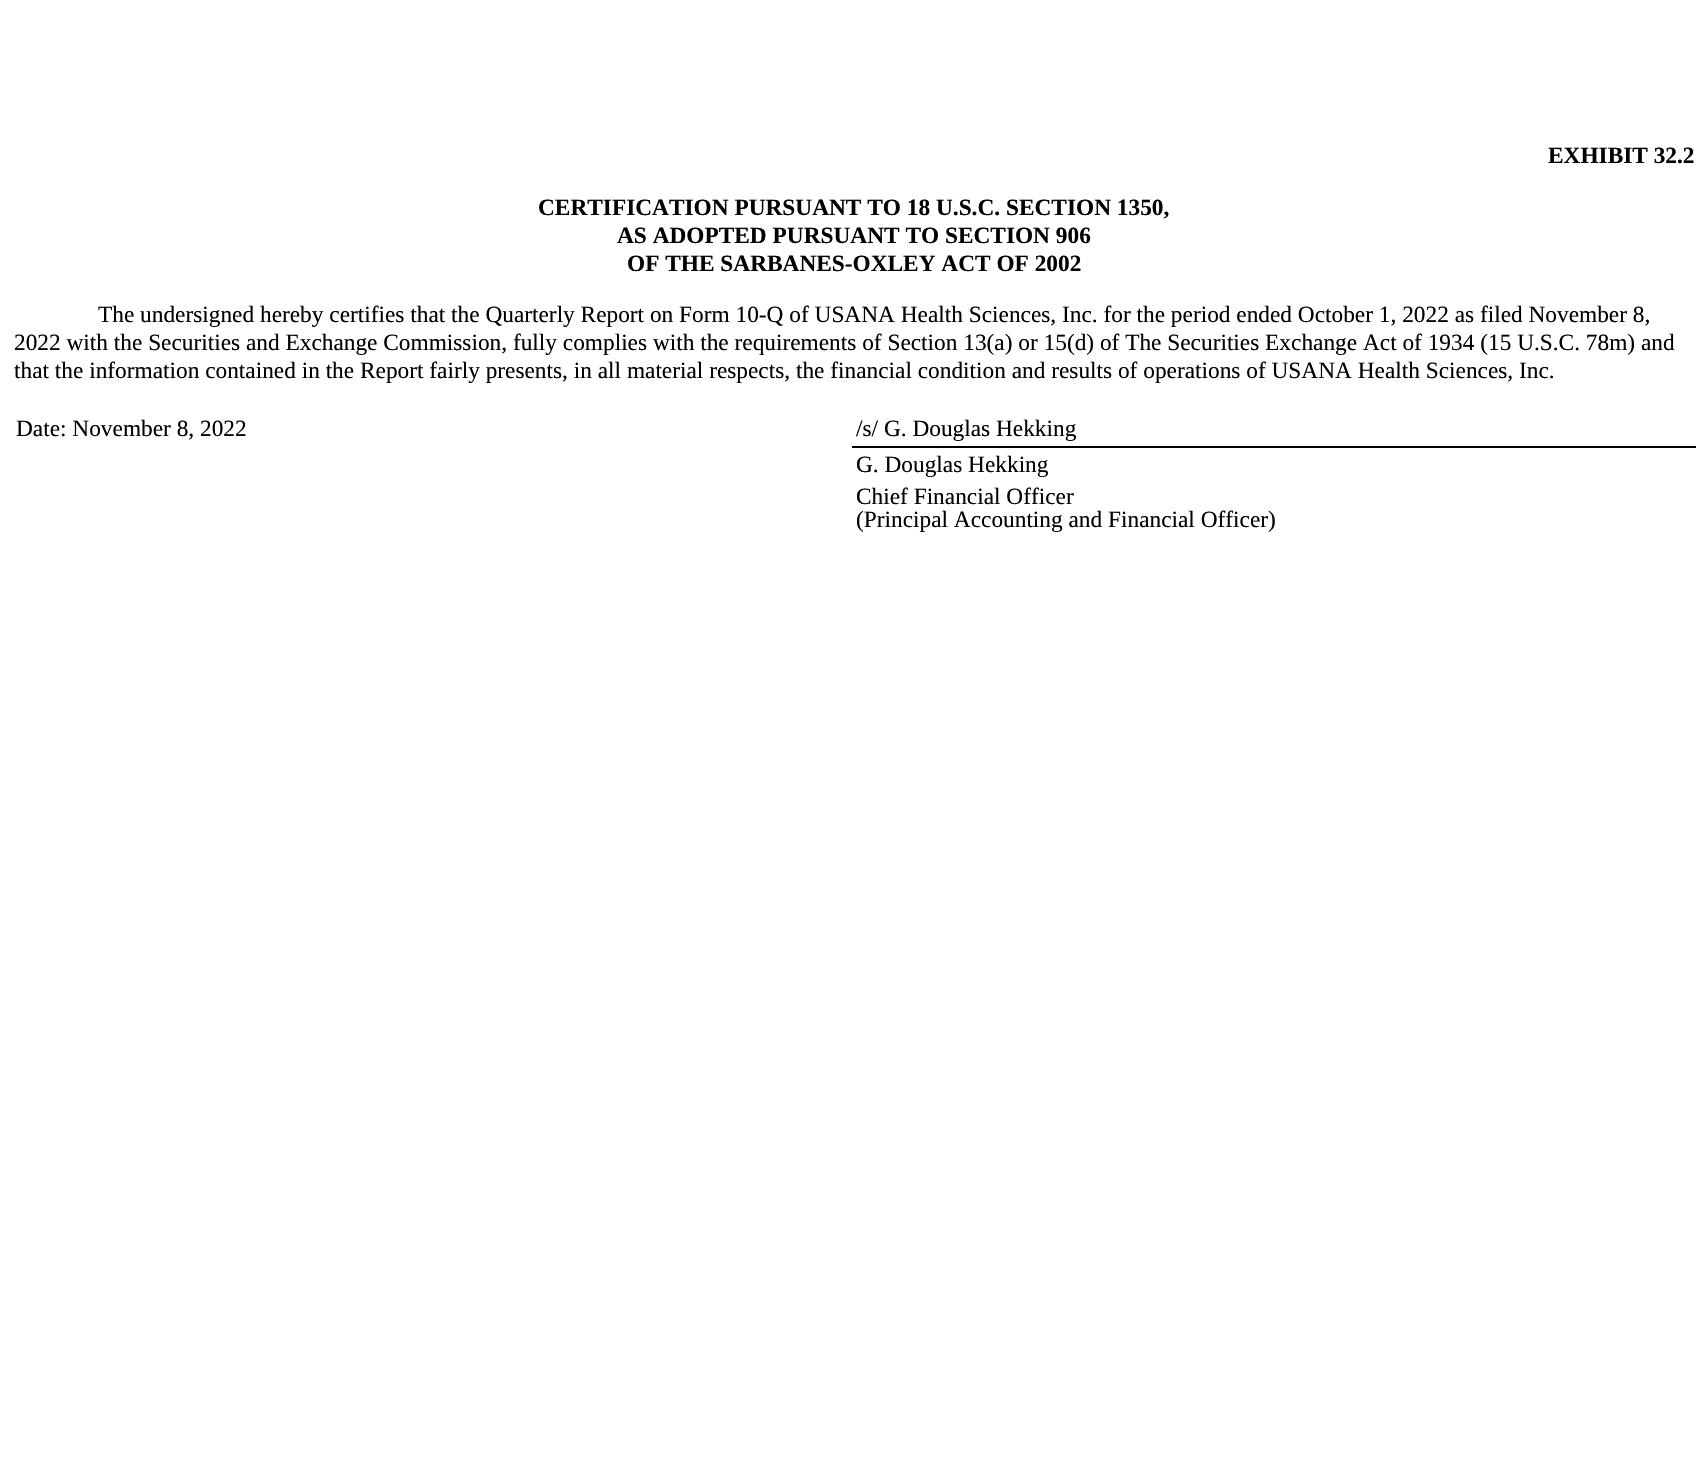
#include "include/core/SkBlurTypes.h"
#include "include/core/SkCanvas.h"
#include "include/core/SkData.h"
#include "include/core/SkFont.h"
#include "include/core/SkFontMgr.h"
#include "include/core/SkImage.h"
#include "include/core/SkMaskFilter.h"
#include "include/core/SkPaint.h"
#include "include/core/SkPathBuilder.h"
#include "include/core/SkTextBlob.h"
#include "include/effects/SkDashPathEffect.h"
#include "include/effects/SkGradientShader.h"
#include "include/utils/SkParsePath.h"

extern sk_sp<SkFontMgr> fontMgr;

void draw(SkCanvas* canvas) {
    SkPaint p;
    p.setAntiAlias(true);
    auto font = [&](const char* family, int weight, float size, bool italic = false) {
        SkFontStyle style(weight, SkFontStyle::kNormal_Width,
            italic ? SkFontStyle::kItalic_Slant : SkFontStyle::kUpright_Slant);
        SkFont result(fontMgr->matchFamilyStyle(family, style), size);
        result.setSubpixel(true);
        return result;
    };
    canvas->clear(0xFFFFFFFF);
    auto font1 = font("Liberation Serif", 700, 23.33f);
    p.setColor(0xFF000000);
    {
        const struct { const char* s; float x, y; } items[] = {
            {"EXHIBIT 32.2", 1548, 163},
            {"CERTIFICATION PURSUANT TO 18 U.S.C. SECTION 1350,", 538, 215},
            {"AS ADOPTED PURSUANT TO SECTION 906", 617, 243},
            {"OF THE SARBANES-OXLEY ACT OF 2002", 627, 271},
        };
        for (auto [s, x, y] : items) {
            canvas->drawString(s, x, y, font1, p);
        }
    }
    auto font2 = font("Liberation Serif", 400, 23.33f);
    {
        const struct { const char* s; float x, y; } items[] = {
            {"The undersigned hereby certifies that the Quarterly Report on Form 10-Q of USANA Health Sciences, Inc. for the period ended October 1, 2022 as filed November 8,", 98, 322},
            {"2022 with the Securities and Exchange Commission, fully complies with the requirements of Section 13(a) or 15(d) of The Securities Exchange Act of 1934 (15 U.S.C. 78m) and", 14, 350},
            {"that the information contained in the Report fairly presents, in all material respects, the financial condition and results of operations of USANA Health Sciences, Inc.", 14, 378},
            {"Date: November 8, 2022", 16, 436},
            {"/s/ G. Douglas Hekking", 856, 436},
        };
        for (auto [s, x, y] : items) {
            canvas->drawString(s, x, y, font2, p);
        }
    }
    canvas->drawRect(SkRect::MakeLTRB(852, 446, 1696, 448), p);
    {
        const struct { const char* s; float x, y; } items[] = {
            {"G. Douglas Hekking", 856, 472},
            {"Chief Financial Officer", 856, 504},
            {"(Principal Accounting and Financial Officer)", 856, 527},
        };
        for (auto [s, x, y] : items) {
            canvas->drawString(s, x, y, font2, p);
        }
    }
}
